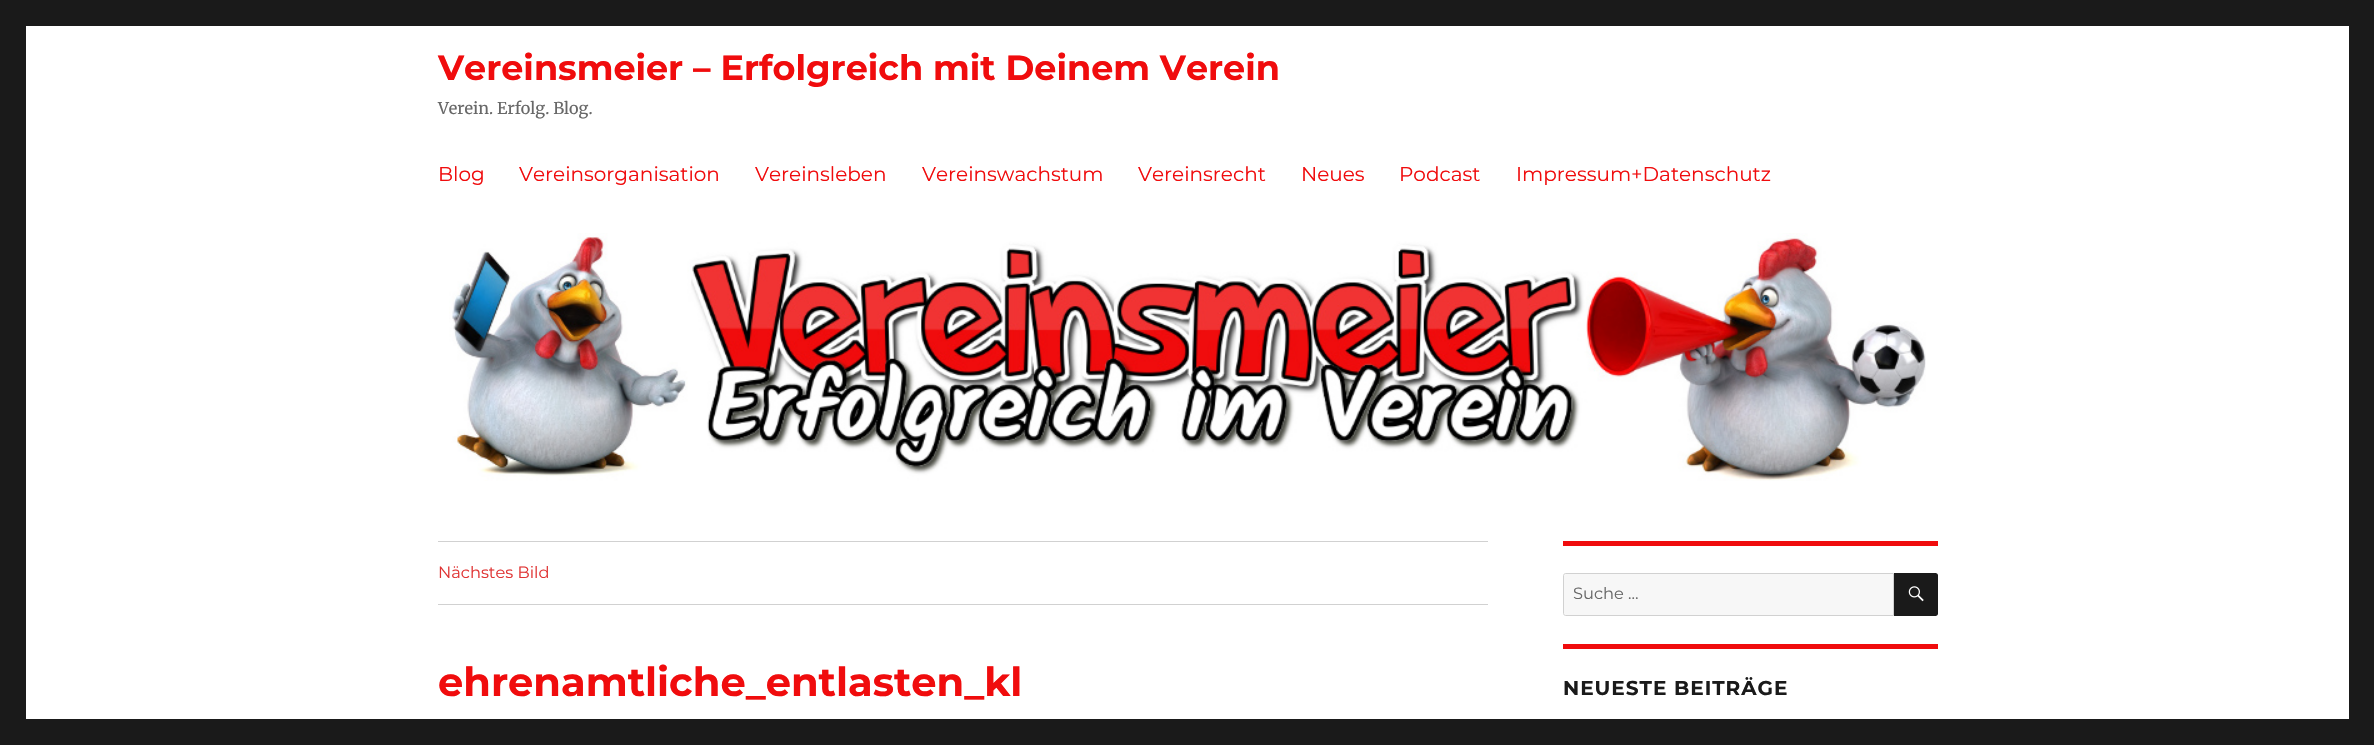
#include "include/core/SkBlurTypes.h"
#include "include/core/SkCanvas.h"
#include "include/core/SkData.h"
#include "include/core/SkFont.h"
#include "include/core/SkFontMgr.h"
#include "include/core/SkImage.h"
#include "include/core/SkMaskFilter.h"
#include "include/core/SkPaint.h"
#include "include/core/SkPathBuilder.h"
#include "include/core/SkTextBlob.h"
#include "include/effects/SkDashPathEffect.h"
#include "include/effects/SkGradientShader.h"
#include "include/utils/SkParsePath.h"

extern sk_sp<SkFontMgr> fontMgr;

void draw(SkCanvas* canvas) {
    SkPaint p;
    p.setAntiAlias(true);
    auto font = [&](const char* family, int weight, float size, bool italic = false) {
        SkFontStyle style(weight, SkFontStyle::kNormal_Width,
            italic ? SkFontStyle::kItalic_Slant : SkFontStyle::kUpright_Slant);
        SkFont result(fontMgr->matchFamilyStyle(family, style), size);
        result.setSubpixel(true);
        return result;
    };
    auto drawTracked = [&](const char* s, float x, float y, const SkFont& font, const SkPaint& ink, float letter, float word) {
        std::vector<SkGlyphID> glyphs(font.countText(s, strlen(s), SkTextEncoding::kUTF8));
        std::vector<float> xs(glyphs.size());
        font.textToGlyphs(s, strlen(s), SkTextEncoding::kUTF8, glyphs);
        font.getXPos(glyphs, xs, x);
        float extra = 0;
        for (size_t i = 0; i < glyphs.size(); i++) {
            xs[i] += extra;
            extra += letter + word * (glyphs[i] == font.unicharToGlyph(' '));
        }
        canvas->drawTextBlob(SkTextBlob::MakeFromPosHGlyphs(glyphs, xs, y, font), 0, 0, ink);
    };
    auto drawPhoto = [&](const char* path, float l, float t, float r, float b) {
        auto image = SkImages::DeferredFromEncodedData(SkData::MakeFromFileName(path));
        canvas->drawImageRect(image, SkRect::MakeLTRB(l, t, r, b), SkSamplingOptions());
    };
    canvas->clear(0xFF1A1A1A);
    p.setColor(0xFFFFFFFF);
    canvas->drawRect(SkRect::MakeLTRB(26, 26, 2349, 719), p);
    auto font1 = font("Montserrat", 700, 35);
    p.setColor(0xFFF00C0D);
    canvas->drawString("Vereinsmeier – Erfolgreich mit Deinem Verein", 438, 80, font1, p);
    auto font2 = font("Merriweather", 400, 16.25f);
    p.setColor(0xFF686868);
    canvas->drawString("Verein. Erfolg. Blog.", 438, 114, font2, p);
    auto font3 = font("Montserrat", 400, 20);
    p.setColor(0xFFF00C0D);
    {
        const struct { const char* s; float x, y; } items[] = {
            {"Blog", 438, 181},
            {"Vereinsorganisation", 519, 181},
            {"Vereinsleben", 755, 181},
            {"Vereinswachstum", 922, 181},
            {"Vereinsrecht", 1138, 181},
            {"Neues", 1301, 181},
            {"Podcast", 1399, 181},
            {"Impressum+Datenschutz", 1516, 181},
        };
        for (auto [s, x, y] : items) {
            canvas->drawString(s, x, y, font3, p);
        }
    }
    drawPhoto("media/1.png", 449, 233, 1926, 481);
    p.setColor(0xFFD1D1D1);
    canvas->drawRect(SkRect::MakeLTRB(438, 541, 1488, 542), p);
    canvas->drawRect(SkRect::MakeLTRB(438, 604, 1488, 605), p);
    auto font4 = font("Montserrat", 400, 16.25f);
    p.setColor(0xFFE03434);
    canvas->drawString("Nächstes Bild", 438, 578, font4, p);
    auto font5 = font("Montserrat", 700, 40);
    p.setColor(0xFFF00C0D);
    canvas->drawString("ehrenamtliche_entlasten_kl", 438, 696, font5, p);
    canvas->drawRect(SkRect::MakeLTRB(1563, 541, 1938, 546), p);
    p.setColor(0xFFF7F7F7);
    canvas->drawPath(SkPathBuilder().moveTo(1565.5f, 573.5f).lineTo(1893.5f, 573.5f).lineTo(1893.5f, 615.5f).lineTo(1565.5f, 615.5f).cubicTo(1564.5f, 615.5f, 1563.5f, 614.5f, 1563.5f, 613.5f).lineTo(1563.5f, 575.5f).cubicTo(1563.5f, 574.5f, 1564.5f, 573.5f, 1565.5f, 573.5f).close().detach(), p);
    p.setStyle(SkPaint::kStroke_Style);
    p.setStrokeWidth(1);
    p.setColor(0xFFD1D1D1);
    canvas->drawPath(SkPathBuilder().moveTo(1565.5f, 573.5f).lineTo(1893.5f, 573.5f).lineTo(1893.5f, 615.5f).lineTo(1565.5f, 615.5f).cubicTo(1564.5f, 615.5f, 1563.5f, 614.5f, 1563.5f, 613.5f).lineTo(1563.5f, 575.5f).cubicTo(1563.5f, 574.5f, 1564.5f, 573.5f, 1565.5f, 573.5f).close().detach(), p);
    p.setStyle(SkPaint::kFill_Style);
    p.setColor(0xFF686868);
    canvas->drawString("Suche …", 1573, 599, font4, p);
    p.setColor(0xFF1A1A1A);
    canvas->drawPath(SkPathBuilder().moveTo(1894, 573).lineTo(1935.5f, 573).cubicTo(1937, 573, 1938, 574, 1938, 575.5f).lineTo(1938, 613.5f).cubicTo(1938, 615, 1937, 616, 1935.5f, 616).lineTo(1894, 616).close().detach(), p);
    drawPhoto("media/2.png", 1908, 586, 1924, 602);
    p.setColor(0xFFF00C0D);
    canvas->drawRect(SkRect::MakeLTRB(1563, 644, 1938, 649), p);
    auto font6 = font("Montserrat", 700, 20);
    p.setColor(0xFF1A1A1A);
    drawTracked("NEUESTE BEITRÄGE", 1563, 695, font6, p, 1, 0);
}
